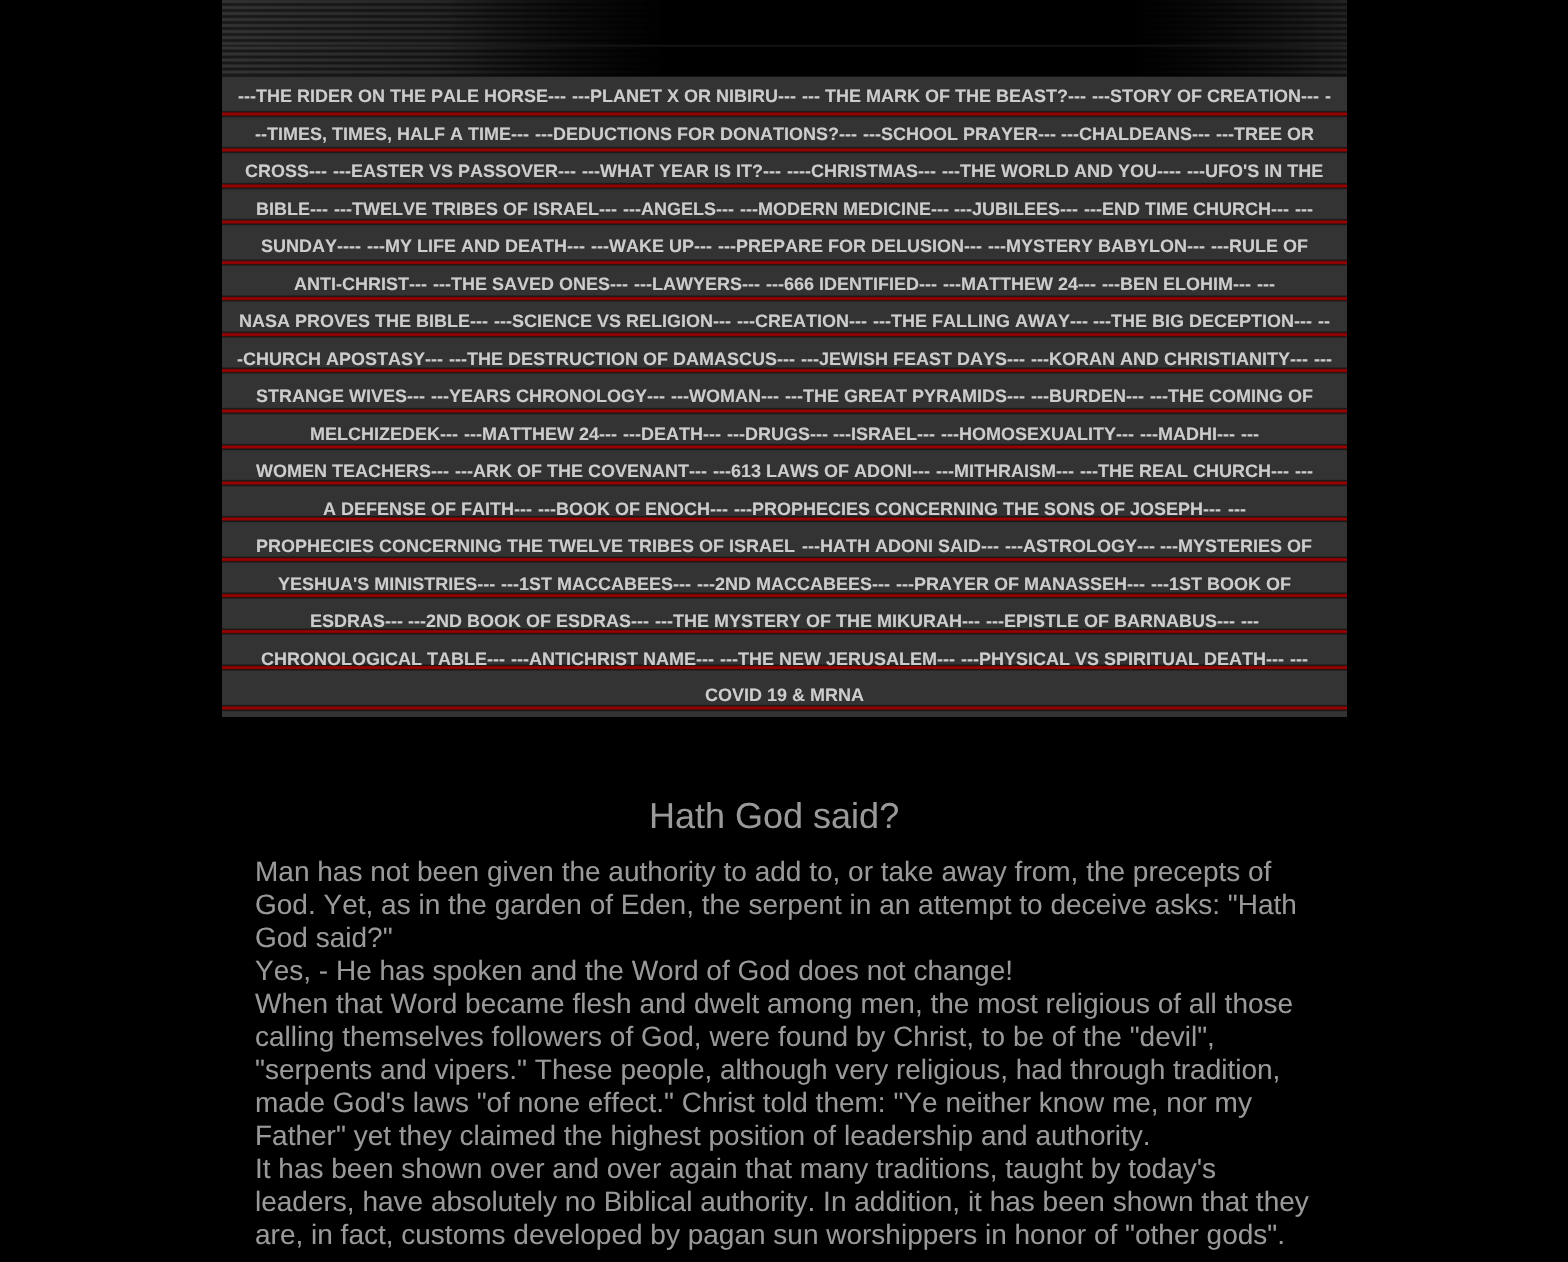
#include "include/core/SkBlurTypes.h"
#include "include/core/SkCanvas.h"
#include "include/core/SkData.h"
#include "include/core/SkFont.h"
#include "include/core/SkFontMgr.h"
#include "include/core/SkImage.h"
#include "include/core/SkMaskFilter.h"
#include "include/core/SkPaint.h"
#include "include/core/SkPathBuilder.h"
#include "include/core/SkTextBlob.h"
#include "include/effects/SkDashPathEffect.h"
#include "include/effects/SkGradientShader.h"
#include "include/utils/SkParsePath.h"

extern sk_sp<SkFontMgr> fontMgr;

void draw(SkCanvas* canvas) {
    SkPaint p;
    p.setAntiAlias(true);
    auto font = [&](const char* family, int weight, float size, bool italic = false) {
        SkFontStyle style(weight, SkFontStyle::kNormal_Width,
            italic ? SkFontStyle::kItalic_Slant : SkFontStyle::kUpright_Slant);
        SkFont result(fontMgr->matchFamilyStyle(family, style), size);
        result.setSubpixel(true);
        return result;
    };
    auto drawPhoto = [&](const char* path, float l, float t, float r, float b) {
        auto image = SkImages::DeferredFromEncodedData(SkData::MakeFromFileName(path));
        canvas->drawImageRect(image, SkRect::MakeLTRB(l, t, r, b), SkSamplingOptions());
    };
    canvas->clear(0xFF000000);
    drawPhoto("media/1.png", 222, 0, 1347, 77);
    drawPhoto("media/2.png", 222, 76, 1347, 717);
    auto font1 = font("Liberation Sans", 700, 18);
    p.setColor(0xFFCCCCCC);
    {
        const struct { const char* s; float x, y; } items[] = {
            {"---THE RIDER ON THE PALE HORSE---", 238, 102},
            {"---PLANET X OR NIBIRU---", 572, 102},
            {"--- THE MARK OF THE BEAST?---", 802, 102},
            {"---STORY OF CREATION---", 1092, 102},
            {"-", 1325, 102},
            {"--TIMES, TIMES, HALF A TIME---", 255, 140},
            {"---DEDUCTIONS FOR DONATIONS?---", 535, 140},
            {"---SCHOOL PRAYER---", 863, 140},
            {"---CHALDEANS---", 1061, 140},
            {"---TREE OR", 1216, 140},
            {"CROSS---", 245, 177},
            {"---EASTER VS PASSOVER---", 333, 177},
            {"---WHAT YEAR IS IT?---", 582, 177},
            {"----CHRISTMAS---", 787, 177},
            {"---THE WORLD AND YOU----", 942, 177},
            {"---UFO'S IN THE", 1187, 177},
            {"BIBLE---", 256, 215},
            {"---TWELVE TRIBES OF ISRAEL---", 334, 215},
            {"---ANGELS---", 623, 215},
            {"---MODERN MEDICINE---", 740, 215},
            {"---JUBILEES---", 954, 215},
            {"---END TIME CHURCH---", 1084, 215},
            {"---", 1295, 215},
            {"SUNDAY----", 261, 252},
            {"---MY LIFE AND DEATH---", 367, 252},
            {"---WAKE UP---", 591, 252},
            {"---PREPARE FOR DELUSION---", 718, 252},
            {"---MYSTERY BABYLON---", 988, 252},
            {"---RULE OF", 1211, 252},
            {"ANTI-CHRIST---", 294, 290},
            {"---THE SAVED ONES---", 433, 290},
            {"---LAWYERS---", 634, 290},
            {"---666 IDENTIFIED---", 766, 290},
            {"---MATTHEW 24---", 943, 290},
            {"---BEN ELOHIM---", 1102, 290},
            {"---", 1257, 290},
            {"NASA PROVES THE BIBLE---", 239, 327},
            {"---SCIENCE VS RELIGION---", 494, 327},
            {"---CREATION---", 737, 327},
            {"---THE FALLING AWAY---", 873, 327},
            {"---THE BIG DECEPTION---", 1093, 327},
            {"--", 1318, 327},
            {"-CHURCH APOSTASY---", 237, 365},
            {"---THE DESTRUCTION OF DAMASCUS---", 449, 365},
            {"---JEWISH FEAST DAYS---", 801, 365},
            {"---KORAN AND CHRISTIANITY---", 1031, 365},
            {"---", 1314, 365},
            {"STRANGE WIVES---", 256, 402},
            {"---YEARS CHRONOLOGY---", 431, 402},
            {"---WOMAN---", 671, 402},
            {"---THE GREAT PYRAMIDS---", 785, 402},
            {"---BURDEN---", 1031, 402},
            {"---THE COMING OF", 1150, 402},
            {"MELCHIZEDEK---", 310, 440},
            {"---MATTHEW 24---", 464, 440},
            {"---DEATH---", 623, 440},
            {"---DRUGS---", 727, 440},
            {"---ISRAEL---", 833, 440},
            {"---HOMOSEXUALITY---", 941, 440},
            {"---MADHI---", 1140, 440},
            {"---", 1241, 440},
            {"WOMEN TEACHERS---", 256, 477},
            {"---ARK OF THE COVENANT---", 455, 477},
            {"---613 LAWS OF ADONI---", 713, 477},
            {"---MITHRAISM---", 936, 477},
            {"---THE REAL CHURCH---", 1080, 477},
            {"---", 1295, 477},
            {"A DEFENSE OF FAITH---", 323, 515},
            {"---BOOK OF ENOCH---", 538, 515},
            {"---PROPHECIES CONCERNING THE SONS OF JOSEPH---", 734, 515},
            {"---", 1228, 515},
            {"PROPHECIES CONCERNING THE TWELVE TRIBES OF ISRAEL", 256, 552},
            {"---HATH ADONI SAID---", 802, 552},
            {"---ASTROLOGY---", 1005, 552},
            {"---MYSTERIES OF", 1160, 552},
            {"YESHUA'S MINISTRIES---", 278, 590},
            {"---1ST MACCABEES---", 501, 590},
            {"---2ND MACCABEES---", 697, 590},
            {"---PRAYER OF MANASSEH---", 896, 590},
            {"---1ST BOOK OF", 1151, 590},
            {"ESDRAS--- ---2ND BOOK OF ESDRAS---", 310, 627},
            {"---THE MYSTERY OF THE MIKURAH---", 655, 627},
            {"---EPISTLE OF BARNABUS---", 986, 627},
            {"---", 1241, 627},
            {"CHRONOLOGICAL TABLE---", 261, 665},
            {"---ANTICHRIST NAME---", 511, 665},
            {"---THE NEW JERUSALEM---", 720, 665},
            {"---PHYSICAL VS SPIRITUAL DEATH---", 961, 665},
            {"---", 1290, 665},
            {"COVID 19 & MRNA", 705, 701},
        };
        for (auto [s, x, y] : items) {
            canvas->drawString(s, x, y, font1, p);
        }
    }
    auto font2 = font("Liberation Sans", 400, 36);
    p.setColor(0xFF999999);
    canvas->drawString("Hath God said?", 649, 828, font2, p);
    auto font3 = font("Liberation Sans", 400, 28);
    {
        const struct { const char* s; float x, y; } items[] = {
            {"Man has not been given the authority to add to, or take away from, the precepts of", 255, 881},
            {"God. Yet, as in the garden of Eden, the serpent in an attempt to deceive asks: \"Hath", 255, 914},
            {"God said?\"", 255, 947},
            {"Yes, - He has spoken and the Word of God does not change!", 255, 980},
            {"When that Word became flesh and dwelt among men, the most religious of all those", 255, 1013},
            {"calling themselves followers of God, were found by Christ, to be of the \"devil\",", 255, 1046},
            {"\"serpents and vipers.\" These people, although very religious, had through tradition,", 255, 1079},
            {"made God's laws \"of none effect.\" Christ told them: \"Ye neither know me, nor my", 255, 1112},
            {"Father\" yet they claimed the highest position of leadership and authority.", 255, 1145},
            {"It has been shown over and over again that many traditions, taught by today's", 255, 1178},
            {"leaders, have absolutely no Biblical authority. In addition, it has been shown that they", 255, 1211},
            {"are, in fact, customs developed by pagan sun worshippers in honor of \"other gods\".", 255, 1244},
        };
        for (auto [s, x, y] : items) {
            canvas->drawString(s, x, y, font3, p);
        }
    }
}
